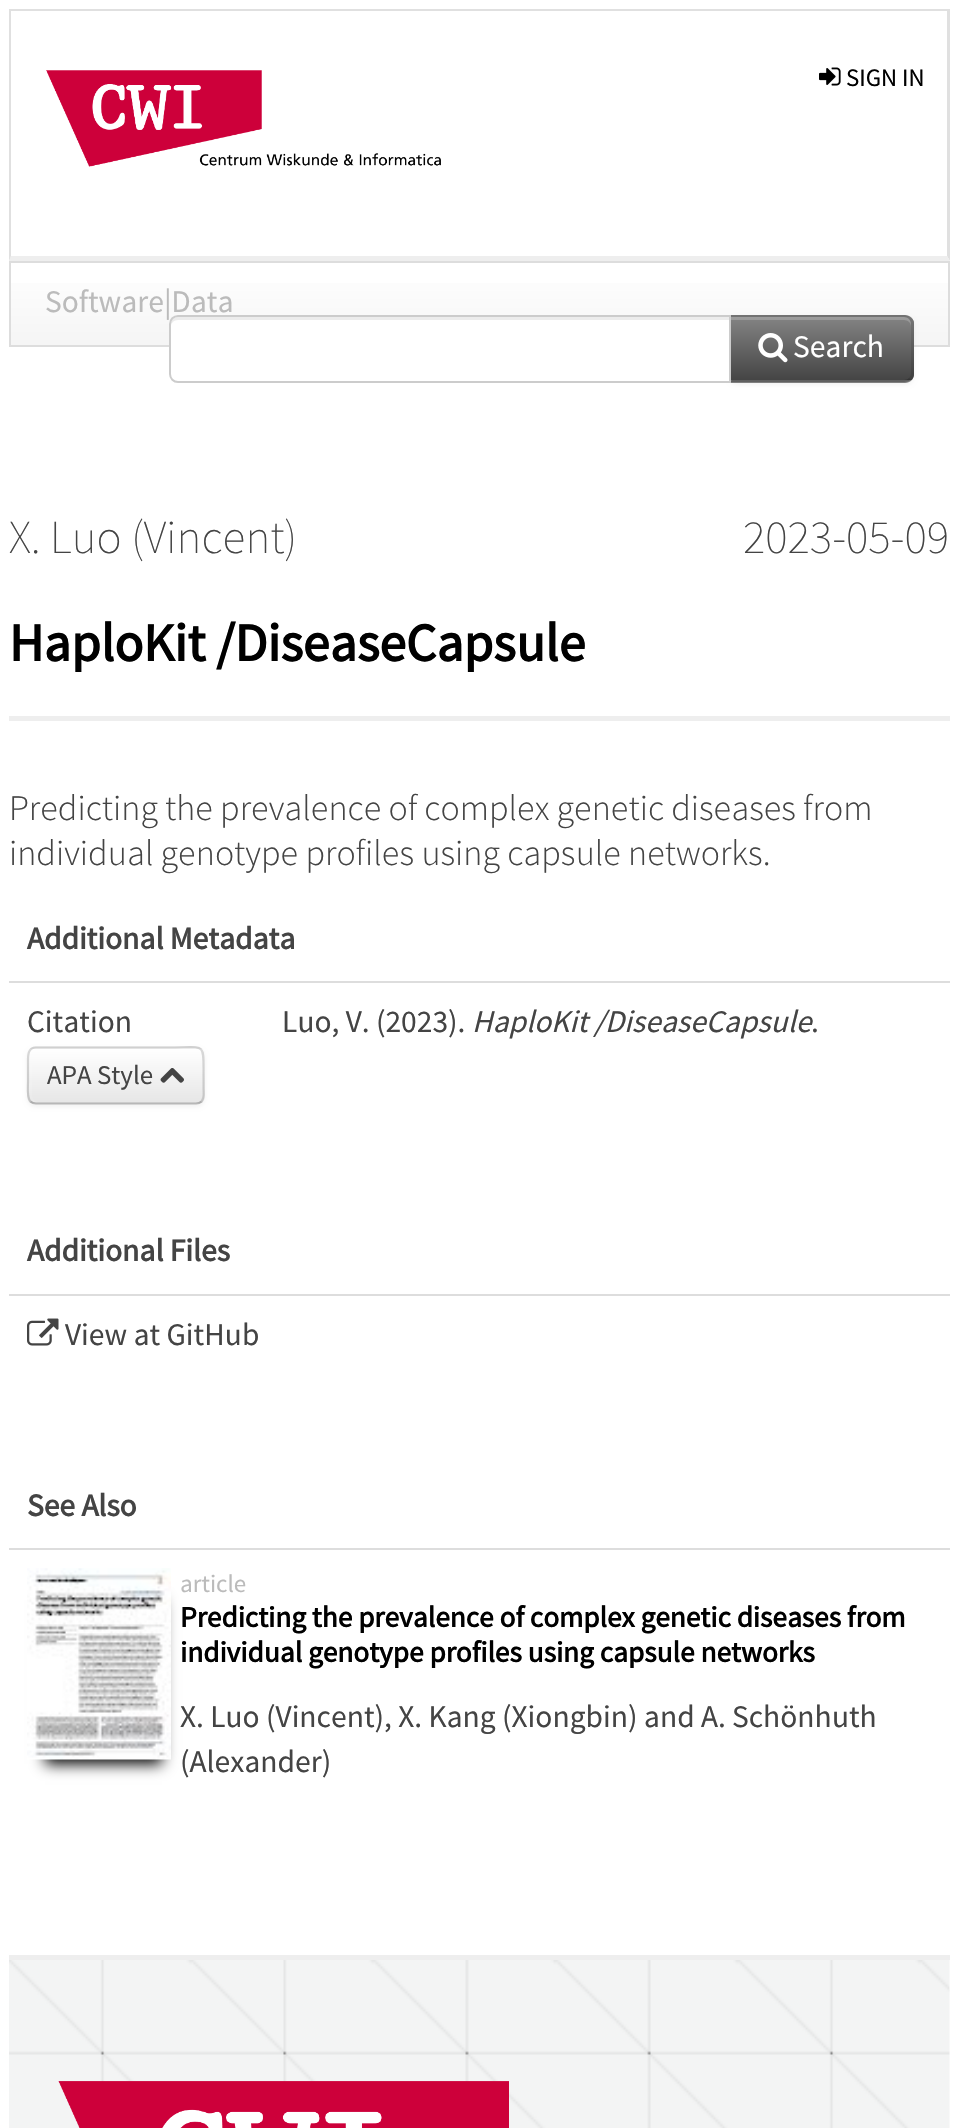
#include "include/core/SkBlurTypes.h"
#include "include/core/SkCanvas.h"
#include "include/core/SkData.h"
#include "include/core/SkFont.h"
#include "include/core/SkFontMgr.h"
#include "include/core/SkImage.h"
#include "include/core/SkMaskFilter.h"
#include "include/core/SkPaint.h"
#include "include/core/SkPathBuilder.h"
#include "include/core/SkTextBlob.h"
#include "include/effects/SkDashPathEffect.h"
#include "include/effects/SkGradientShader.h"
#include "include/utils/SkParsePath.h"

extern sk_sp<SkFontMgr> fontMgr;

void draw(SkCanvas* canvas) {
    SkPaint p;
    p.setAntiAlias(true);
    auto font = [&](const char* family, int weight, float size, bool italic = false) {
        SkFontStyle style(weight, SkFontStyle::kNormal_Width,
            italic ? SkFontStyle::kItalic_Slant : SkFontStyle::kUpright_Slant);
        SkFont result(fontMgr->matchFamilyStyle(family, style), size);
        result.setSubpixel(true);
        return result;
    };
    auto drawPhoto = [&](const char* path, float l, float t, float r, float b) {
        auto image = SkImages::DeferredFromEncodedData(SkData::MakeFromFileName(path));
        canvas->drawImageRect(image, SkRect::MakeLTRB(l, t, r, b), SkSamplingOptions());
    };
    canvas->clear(0xFFFFFFFF);
    p.setColor(0xFFE0E0E0);
    canvas->drawRect(SkRect::MakeLTRB(9, 9, 950, 11), p);
    canvas->drawPath(SkPathBuilder().moveTo(950, 9).lineTo(950, 261).lineTo(947, 256).lineTo(947, 11).close().detach(), p);
    p.setColor(0xFFEEEEEE);
    canvas->drawPath(SkPathBuilder().moveTo(950, 261).lineTo(9, 261).lineTo(11, 256).lineTo(947, 256).close().detach(), p);
    p.setColor(0xFFE0E0E0);
    canvas->drawPath(SkPathBuilder().moveTo(9, 261).lineTo(9, 9).lineTo(11, 11).lineTo(11, 256).close().detach(), p);
    drawPhoto("media/1.png", 46, 70, 441, 167);
    drawPhoto("media/2.png", 819, 67, 841, 86);
    auto font1 = font("Source Sans Pro", 400, 25);
    p.setColor(0xFF000000);
    canvas->drawString("SIGN IN", 846, 86, font1, p);
    p.setColor(0xFFF5F5F5);
    canvas->drawRect(SkRect::MakeLTRB(11, 344, 948, 345), p);
    {
        const SkColor colors[] = {0xFFFFFFFF, 0xFFF5F5F5};
        const float stops[] = {0, 1};
        const SkPoint ends[] = {{479, 263}, {479, 344}};
        p.setShader(SkGradientShader::MakeLinear(ends, colors, stops, 2, SkTileMode::kClamp));
        p.setAlpha(255);
    }
    canvas->drawRect(SkRect::MakeLTRB(11, 283, 948, 344), p);
    p.setStyle(SkPaint::kStroke_Style);
    p.setStrokeWidth(2);
    p.setShader(nullptr);
    p.setColor(0xFFDDDDDD);
    canvas->drawRect(SkRect::MakeLTRB(10, 262, 949, 346), p);
    auto font2 = font("Source Sans Pro", 400, 31.5f);
    p.setStyle(SkPaint::kFill_Style);
    p.setColor(0xFFBBBBBB);
    canvas->drawString("Software|Data", 45, 312, font2, p);
    p.setColor(0x0D000000);
    p.setMaskFilter(SkMaskFilter::MakeBlur(kNormal_SkBlurStyle, 2));
    canvas->drawRoundRect(SkRect::MakeLTRB(729, 317, 914, 385), 9, 9, p);
    p.setMaskFilter(nullptr);
    p.setColor(0xFF7F7F7F);
    canvas->drawPath(SkPathBuilder().moveTo(729, 315).lineTo(905, 315).cubicTo(910, 315, 914, 319, 914, 324).lineTo(914, 374).cubicTo(914, 379, 910, 383, 905, 383).lineTo(729, 383).close().detach(), p);
    canvas->save();
    canvas->clipPath(SkPathBuilder().moveTo(729, 315).lineTo(905, 315).cubicTo(910, 315, 914, 319, 914, 324).lineTo(914, 374).cubicTo(914, 379, 910, 383, 905, 383).lineTo(729, 383).close().detach(), true);
    {
        const SkColor colors[] = {0xFF848484, 0xFF444444};
        const float stops[] = {0, 1};
        const SkPoint ends[] = {{821, 317}, {821, 380}};
        p.setShader(SkGradientShader::MakeLinear(ends, colors, stops, 2, SkTileMode::kClamp));
        p.setAlpha(255);
    }
    canvas->drawRect(SkRect::MakeLTRB(731, 317, 914, 380), p);
    canvas->restore();
    p.setShader(nullptr);
    p.setColor(0x33FFFFFF);
    canvas->drawPath(SkPathBuilder().moveTo(731, 320).lineTo(904, 320).cubicTo(908, 320, 911, 323, 911, 326).lineTo(911, 324).cubicTo(911, 320, 908, 317, 904, 317).lineTo(731, 317).close().detach(), p);
    p.setColor(0x1A000000);
    canvas->drawPath(SkPathBuilder().moveTo(729, 315).lineTo(731, 317).lineTo(904, 317).cubicTo(906, 317, 908, 318, 909, 319).lineTo(911, 318).cubicTo(909, 316, 906, 315, 904, 315).close().detach(), p);
    canvas->drawPath(SkPathBuilder().moveTo(914, 376).lineTo(911, 380).lineTo(909, 378).cubicTo(910, 377, 911, 375, 911, 374).lineTo(911, 324).cubicTo(911, 322, 910, 320, 909, 319).lineTo(911, 318).lineTo(914, 321).close().detach(), p);
    p.setColor(0x40000000);
    canvas->drawPath(SkPathBuilder().moveTo(911, 380).cubicTo(909, 381, 906, 382, 904, 382).lineTo(730, 382).lineTo(732, 380).lineTo(904, 380).cubicTo(906, 380, 908, 379, 909, 378).close().detach(), p);
    p.setColor(0x1A000000);
    canvas->drawPath(SkPathBuilder().moveTo(731, 317).lineTo(729, 315).lineTo(729, 382).lineTo(732, 380).lineTo(731, 380).close().detach(), p);
    p.setColor(0xFFFFFFFF);
    canvas->drawPath(SkPathBuilder().moveTo(178, 315).lineTo(731, 315).lineTo(731, 383).lineTo(178, 383).cubicTo(173, 383, 169, 379, 169, 374).lineTo(169, 324).cubicTo(169, 319, 173, 315, 178, 315).close().detach(), p);
    p.setColor(0xFFECECEC);
    canvas->drawPath(SkPathBuilder().moveTo(178, 320).lineTo(729, 320).lineTo(729, 317).lineTo(178, 317).cubicTo(174, 317, 171, 320, 171, 324).lineTo(171, 326).cubicTo(171, 323, 174, 320, 178, 320).close().detach(), p);
    p.setStyle(SkPaint::kStroke_Style);
    p.setColor(0xFFCCCCCC);
    canvas->drawPath(SkPathBuilder().moveTo(178, 316).lineTo(730, 316).lineTo(730, 382).lineTo(178, 382).cubicTo(173.5f, 382, 170, 378.5f, 170, 374).lineTo(170, 324).cubicTo(170, 319.5f, 173.5f, 316, 178, 316).close().detach(), p);
    drawPhoto("media/3.png", 758, 333, 788, 363);
    p.setStyle(SkPaint::kFill_Style);
    p.setColor(0xFFFFFFFF);
    canvas->drawString("Search", 793, 357, font2, p);
    p.setColor(0xFFEEEEEE);
    canvas->drawRect(SkRect::MakeLTRB(9, 716, 950, 721), p);
    auto font3 = font("Source Sans Pro", 200, 47.25f);
    p.setColor(0xFF444444);
    canvas->drawString("X. Luo (Vincent)", 9, 553, font3, p);
    canvas->drawString("2023-05-09", 743, 553, font3, p);
    auto font4 = font("Source Sans Pro", 700, 53.5f);
    p.setColor(0xFF000000);
    canvas->drawString("HaploKit /DiseaseCapsule", 9, 661, font4, p);
    auto font5 = font("Source Sans Pro", 300, 36);
    p.setColor(0xFF444444);
    canvas->drawString("Predicting the prevalence of complex genetic diseases from", 9, 820, font5, p);
    canvas->drawString("individual genotype profiles using capsule networks.", 9, 865, font5, p);
    auto font6 = font("Source Sans Pro", 700, 31.5f);
    canvas->drawString("Additional Metadata", 27, 949, font6, p);
    canvas->drawString("Citation", 27, 1032, font2, p);
    p.setColor(0x0D000000);
    p.setMaskFilter(SkMaskFilter::MakeBlur(kNormal_SkBlurStyle, 2));
    canvas->drawRoundRect(SkRect::MakeLTRB(27, 1049, 205, 1107), 9, 9, p);
    p.setMaskFilter(nullptr);
    p.setColor(0xFFF5F5F5);
    canvas->drawRoundRect(SkRect::MakeLTRB(27, 1046, 205, 1105), 9, 9, p);
    canvas->save();
    canvas->clipPath(SkPathBuilder().moveTo(36, 1046).lineTo(196, 1046).cubicTo(201, 1046, 205, 1050, 205, 1055).lineTo(205, 1096).cubicTo(205, 1101, 201, 1105, 196, 1105).lineTo(36, 1105).cubicTo(31, 1105, 27, 1101, 27, 1096).lineTo(27, 1055).cubicTo(27, 1050, 31, 1046, 36, 1046).close().detach(), true);
    {
        const SkColor colors[] = {0xFFFFFFFF, 0xFFE6E6E6};
        const float stops[] = {0, 1};
        const SkPoint ends[] = {{116, 1049}, {116, 1103}};
        p.setShader(SkGradientShader::MakeLinear(ends, colors, stops, 2, SkTileMode::kClamp));
        p.setAlpha(255);
    }
    canvas->drawRect(SkRect::MakeLTRB(27, 1049, 205, 1103), p);
    canvas->restore();
    p.setShader(nullptr);
    p.setColor(0x33FFFFFF);
    canvas->drawPath(SkPathBuilder().moveTo(36, 1051).lineTo(169, 1051).cubicTo(179, 1051, 200, 1046, 202, 1057).lineTo(202, 1100).cubicTo(203, 1099, 203, 1097, 203, 1096).lineTo(203, 1056).cubicTo(203, 1052, 200, 1049, 196, 1049).lineTo(36, 1049).cubicTo(32, 1049, 29, 1052, 29, 1056).lineTo(29, 1058).cubicTo(29, 1054, 32, 1051, 36, 1051).close().detach(), p);
    p.setColor(0x1FFFFFFF);
    canvas->drawPath(SkPathBuilder().moveTo(35, 1049).cubicTo(32, 1049, 29, 1052, 29, 1056).lineTo(29, 1096).cubicTo(29, 1100, 32, 1103, 36, 1103).lineTo(196, 1103).cubicTo(197, 1103, 199, 1103, 200, 1102).lineTo(38, 1102).cubicTo(35, 1102, 32, 1099, 32, 1096).lineTo(32, 1055).cubicTo(32, 1053, 33, 1050, 35, 1049).close().detach(), p);
    p.setStyle(SkPaint::kStroke_Style);
    p.setStrokeWidth(2.2f);
    p.setColor(0x40000000);
    canvas->drawPath(SkPathBuilder().moveTo(201.5f, 1101.5f).cubicTo(200, 1103, 198, 1103.5f, 196, 1103.5f).lineTo(36, 1103.5f).cubicTo(34, 1103.5f, 32, 1103, 30.5f, 1101.5f).detach(), p);
    p.setColor(0x26000000);
    canvas->drawPath(SkPathBuilder().moveTo(30.5f, 1101.5f).cubicTo(26.5f, 1097, 28, 1087, 28, 1082).lineTo(28, 1062).cubicTo(28, 1056, 27.5f, 1047.5f, 36, 1047.5f).lineTo(169, 1047.5f).cubicTo(206.5f, 1047.5f, 203.5f, 1041.5f, 203.5f, 1075.5f).lineTo(203.5f, 1089).cubicTo(203.5f, 1093, 204.5f, 1098, 201.5f, 1101.5f).detach(), p);
    auto font7 = font("Source Sans Pro", 400, 27);
    p.setStyle(SkPaint::kFill_Style);
    p.setColor(0xFF444444);
    canvas->drawString("APA Style", 47, 1084, font7, p);
    drawPhoto("media/4.png", 160, 1068, 184, 1083);
    p.setColor(0xFFDDDDDD);
    canvas->drawRect(SkRect::MakeLTRB(9, 981, 950, 983), p);
    p.setColor(0xFF444444);
    canvas->drawString("Luo, V. (2023).", 282, 1032, font2, p);
    auto font8 = font("Source Sans Pro", 400, 31.5f, true);
    canvas->drawString("HaploKit /DiseaseCapsule", 472, 1032, font8, p);
    canvas->drawString(".", 811, 1032, font2, p);
    canvas->drawString("Additional Files", 27, 1261, font6, p);
    p.setColor(0xFFDDDDDD);
    canvas->drawRect(SkRect::MakeLTRB(9, 1294, 950, 1296), p);
    drawPhoto("media/5.png", 27, 1318, 59, 1346);
    p.setColor(0xFF444444);
    canvas->drawString("View at GitHub", 65, 1345, font2, p);
    canvas->drawString("See Also", 27, 1516, font6, p);
    p.setColor(0xFFDDDDDD);
    canvas->drawRect(SkRect::MakeLTRB(9, 1548, 950, 1550), p);
    p.setColor(0xFF000000);
    p.setMaskFilter(SkMaskFilter::MakeBlur(kNormal_SkBlurStyle, 7));
    canvas->drawRect(SkRect::MakeLTRB(45, 1600, 162, 1764), p);
    p.setMaskFilter(nullptr);
    drawPhoto("media/6.png", 27, 1568, 171, 1760);
    p.setColor(0xFFBBBBBB);
    canvas->drawString("article", 180, 1592, font1, p);
    auto font9 = font("Source Sans Pro", 700, 29.25f);
    p.setColor(0xFF000000);
    canvas->drawString("Predicting the prevalence of complex genetic diseases from", 180, 1627, font9, p);
    canvas->drawString("individual genotype profiles using capsule networks", 180, 1662, font9, p);
    p.setColor(0xFF444444);
    canvas->drawString("X. Luo (Vincent), X. Kang (Xiongbin) and A. Schönhuth", 180, 1727, font2, p);
    canvas->drawString("(Alexander)", 180, 1772, font2, p);
    drawPhoto("media/7.png", 9, 1960, 950, 2128);
    p.setColor(0xFFEEEEEE);
    canvas->drawRect(SkRect::MakeLTRB(9, 1955, 950, 1960), p);
    drawPhoto("media/8.png", 58, 2081, 509, 2128);
}
